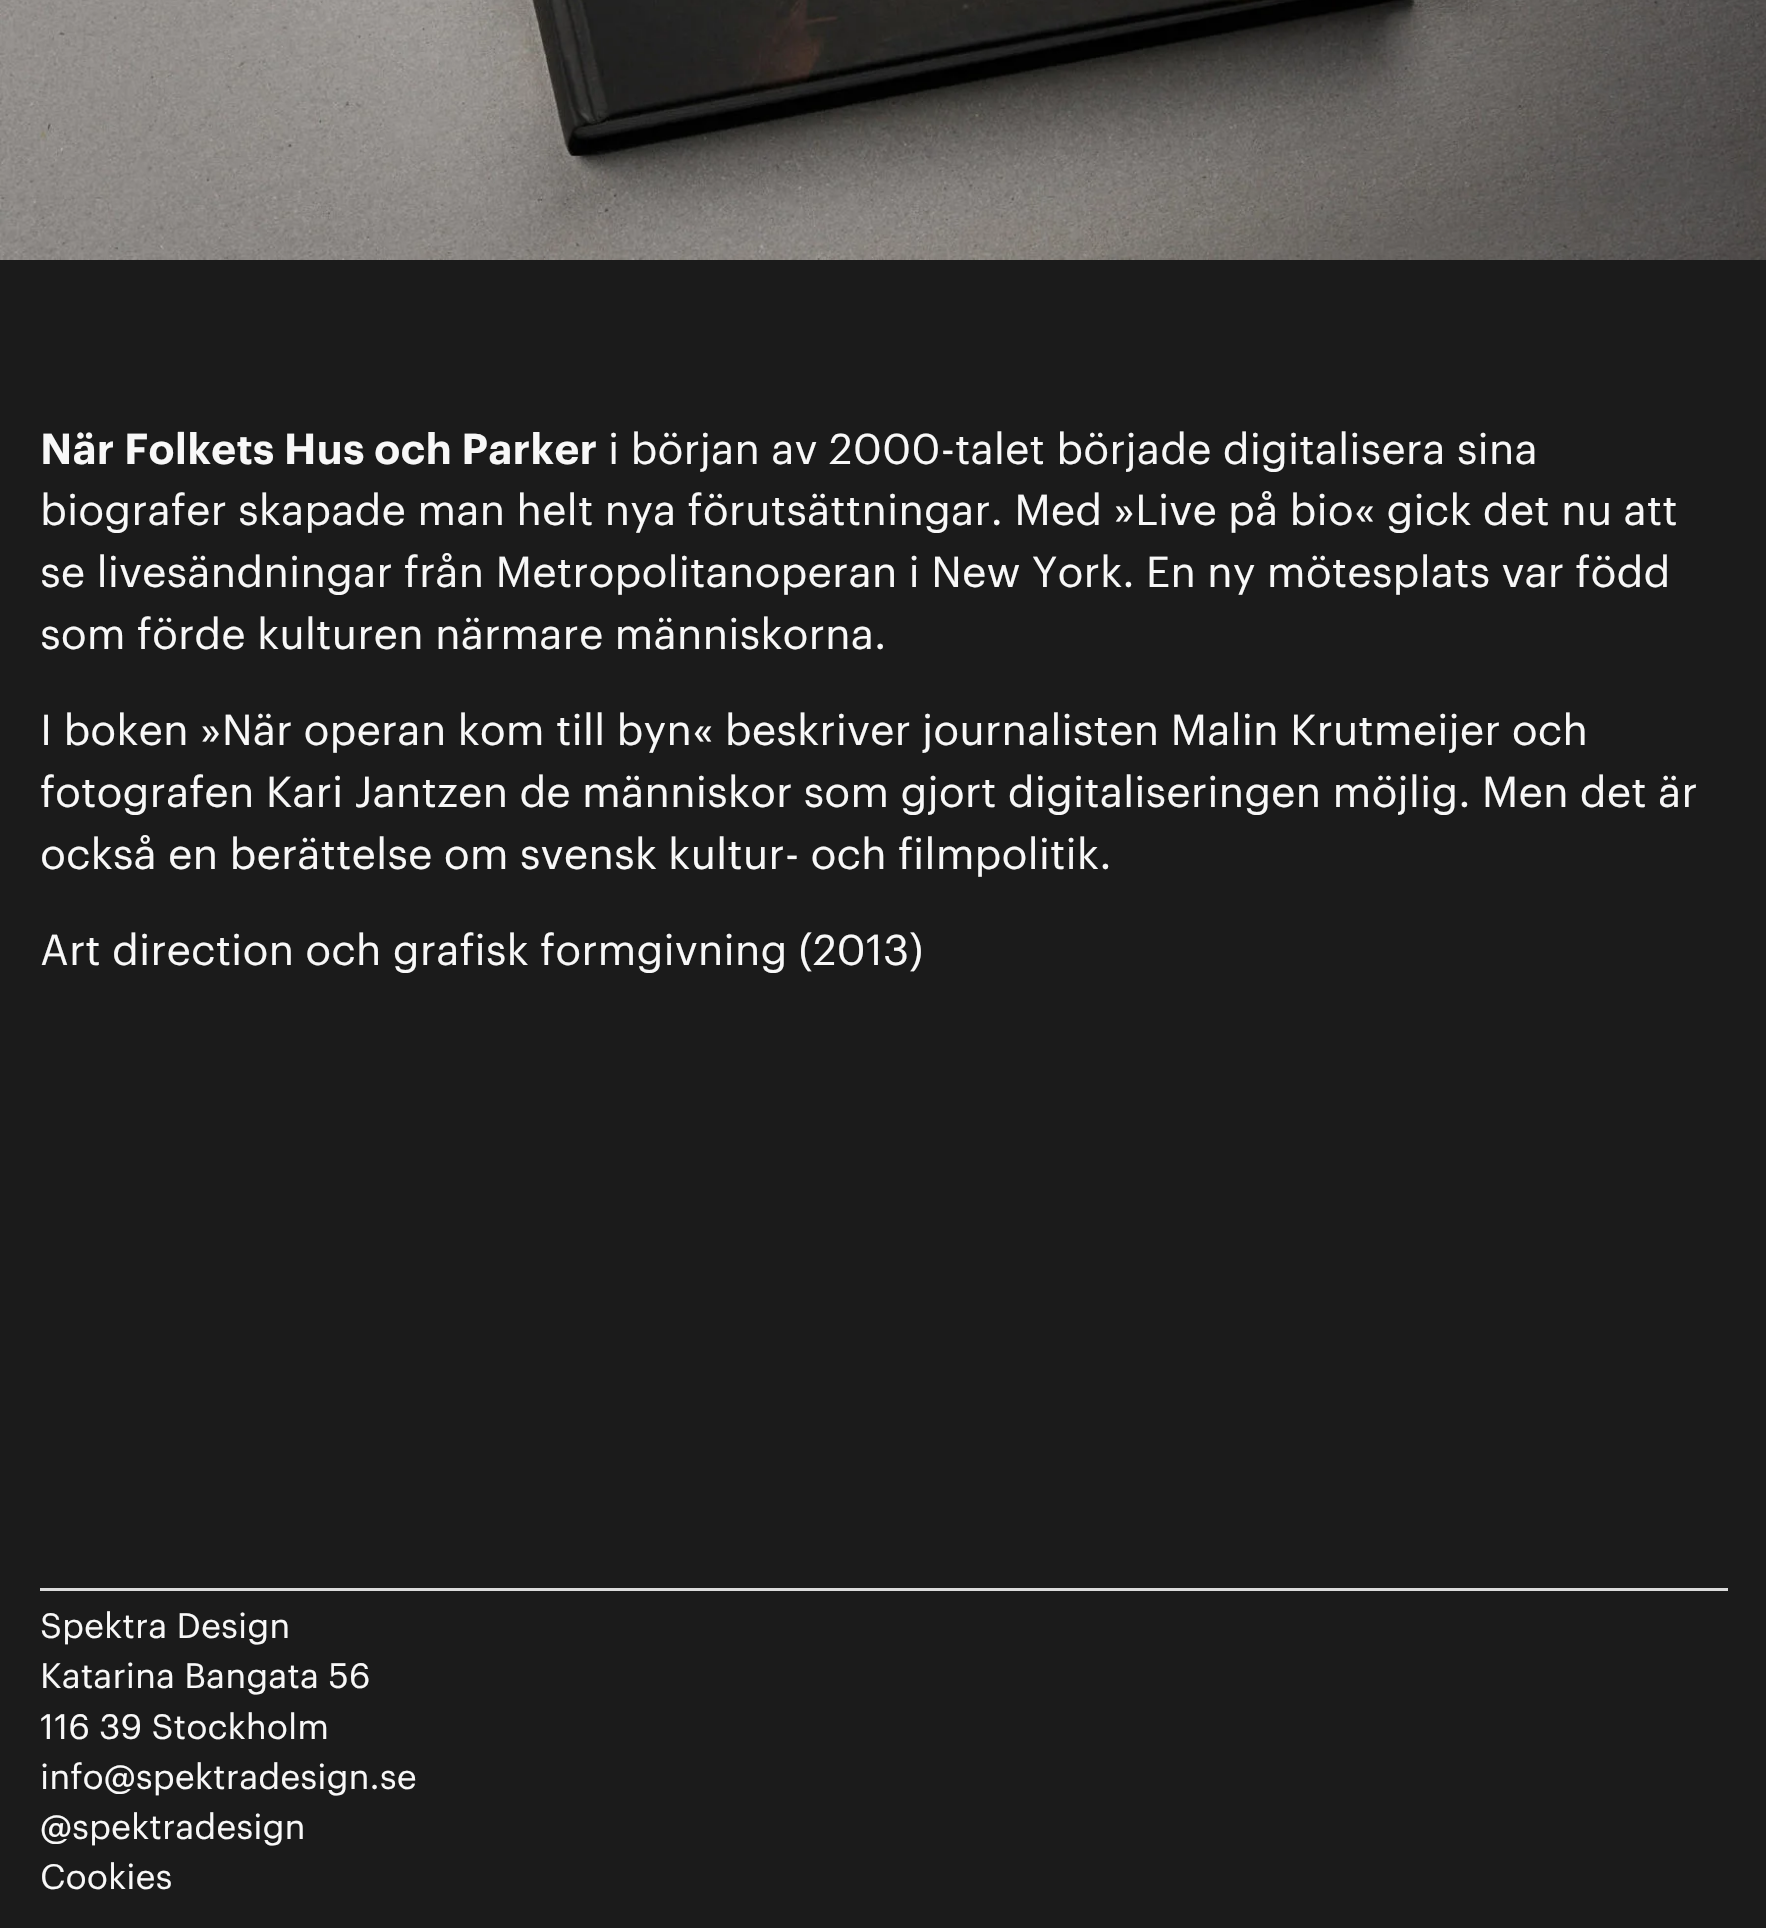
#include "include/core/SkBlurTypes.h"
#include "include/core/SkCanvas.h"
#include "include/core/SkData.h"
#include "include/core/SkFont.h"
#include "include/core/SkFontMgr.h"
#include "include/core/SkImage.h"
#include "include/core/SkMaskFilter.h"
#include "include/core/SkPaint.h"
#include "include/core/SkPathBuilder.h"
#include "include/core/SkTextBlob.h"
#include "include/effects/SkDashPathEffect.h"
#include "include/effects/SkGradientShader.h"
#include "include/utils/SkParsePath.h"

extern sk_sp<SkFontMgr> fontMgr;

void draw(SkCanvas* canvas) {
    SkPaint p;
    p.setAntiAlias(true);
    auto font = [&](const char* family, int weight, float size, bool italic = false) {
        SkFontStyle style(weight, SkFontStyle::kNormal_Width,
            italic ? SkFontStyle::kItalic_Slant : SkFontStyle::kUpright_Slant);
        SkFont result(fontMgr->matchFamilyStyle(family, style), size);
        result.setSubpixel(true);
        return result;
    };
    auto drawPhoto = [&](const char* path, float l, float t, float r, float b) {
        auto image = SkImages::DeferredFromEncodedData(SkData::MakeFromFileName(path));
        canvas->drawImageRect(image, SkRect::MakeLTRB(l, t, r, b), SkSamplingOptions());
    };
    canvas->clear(0xFF1B1B1B);
    drawPhoto("media/1.png", 0, 0, 1766, 260);
    auto font1 = font("Graphik", 600, 42.2f);
    p.setColor(0xFFF8F8F8);
    canvas->drawString("När Folkets Hus och Parker", 40, 464, font1, p);
    auto font2 = font("Graphik", 400, 42.2f);
    {
        const struct { const char* s; float x, y; } items[] = {
            {"i början av 2000-talet började digitalisera sina", 608, 464},
            {"biografer skapade man helt nya förutsättningar. Med »Live på bio« gick det nu att", 40, 525},
            {"se livesändningar från Metropolitanoperan i New York. En ny mötesplats var född", 40, 587},
            {"som förde kulturen närmare människorna.", 40, 649},
            {"I boken »När operan kom till byn« beskriver journalisten Malin Krutmeijer och", 40, 745},
            {"fotografen Kari Jantzen de människor som gjort digitaliseringen möjlig. Men det är", 40, 807},
            {"också en berättelse om svensk kultur- och filmpolitik.", 40, 869},
            {"Art direction och grafisk formgivning (2013)", 40, 965},
        };
        for (auto [s, x, y] : items) {
            canvas->drawString(s, x, y, font2, p);
        }
    }
    p.setColor(0xFFDBDBDB);
    canvas->drawRect(SkRect::MakeLTRB(40, 1588, 1728, 1591), p);
    auto font3 = font("Graphik", 400, 34.5f);
    p.setColor(0xFFF8F8F8);
    {
        const struct { const char* s; float x, y; } items[] = {
            {"Spektra Design", 40, 1638},
            {"Katarina Bangata 56", 40, 1688},
            {"116 39 Stockholm", 40, 1739},
            {"info@spektradesign.se", 40, 1789},
            {"@spektradesign", 40, 1839},
            {"Cookies", 40, 1889},
        };
        for (auto [s, x, y] : items) {
            canvas->drawString(s, x, y, font3, p);
        }
    }
}
